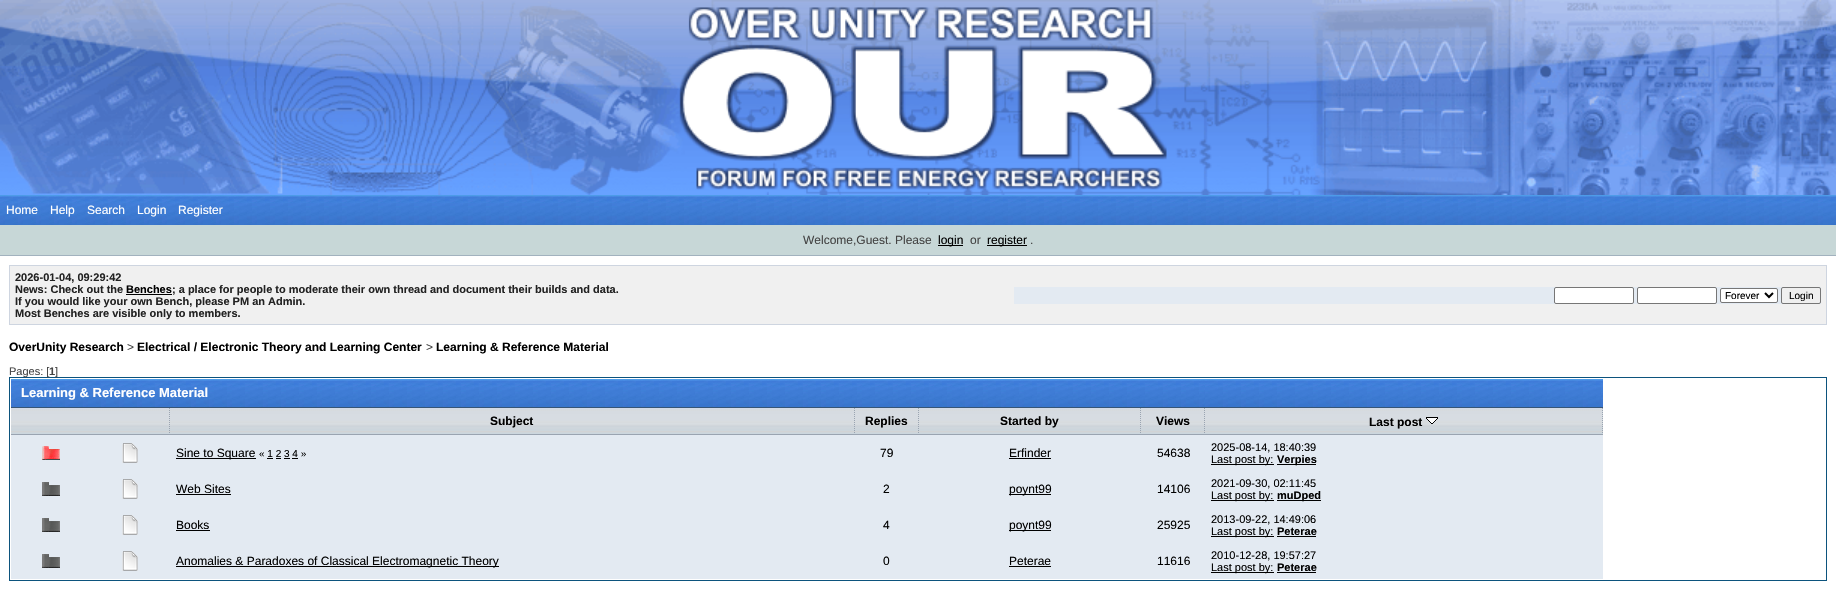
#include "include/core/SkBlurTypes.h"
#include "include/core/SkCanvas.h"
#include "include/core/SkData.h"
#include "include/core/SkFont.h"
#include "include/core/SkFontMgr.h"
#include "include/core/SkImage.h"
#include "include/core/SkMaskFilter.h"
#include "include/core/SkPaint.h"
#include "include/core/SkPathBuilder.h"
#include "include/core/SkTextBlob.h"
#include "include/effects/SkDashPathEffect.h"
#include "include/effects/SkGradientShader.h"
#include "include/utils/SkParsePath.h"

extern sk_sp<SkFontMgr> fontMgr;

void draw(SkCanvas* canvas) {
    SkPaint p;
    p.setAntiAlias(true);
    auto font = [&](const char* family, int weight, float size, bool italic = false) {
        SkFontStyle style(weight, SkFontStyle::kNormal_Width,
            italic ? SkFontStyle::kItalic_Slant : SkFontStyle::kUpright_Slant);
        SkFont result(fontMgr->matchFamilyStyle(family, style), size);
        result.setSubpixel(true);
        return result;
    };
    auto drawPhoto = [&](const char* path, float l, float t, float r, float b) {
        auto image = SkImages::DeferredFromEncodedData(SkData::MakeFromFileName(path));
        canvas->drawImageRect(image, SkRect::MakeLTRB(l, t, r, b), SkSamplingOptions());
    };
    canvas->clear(0xFFFFFFFF);
    drawPhoto("media/1.png", 0, 0, 1836, 195);
    drawPhoto("media/2.png", 0, 195, 1836, 225);
    auto font1 = font("Liberation Sans", 400, 12);
    p.setColor(0xFFFFFFFF);
    {
        const struct { const char* s; float x, y; } items[] = {
            {"Home", 6, 214},
            {"Help", 50, 214},
            {"Search", 87, 214},
            {"Login", 137, 214},
            {"Register", 178, 214},
        };
        for (auto [s, x, y] : items) {
            canvas->drawString(s, x, y, font1, p);
        }
    }
    p.setColor(0xFFC7D7D7);
    canvas->drawRect(SkRect::MakeLTRB(0, 225, 1836, 255), p);
    p.setColor(0xFFA2B2BE);
    canvas->drawRect(SkRect::MakeLTRB(0, 255, 1836, 256), p);
    p.setColor(0xFF444444);
    canvas->drawString("Welcome,Guest. Please", 803, 244, font1, p);
    p.setColor(0xFF000000);
    canvas->drawRect(SkRect::MakeLTRB(938, 245, 963, 246), p);
    canvas->drawString("login", 938, 244, font1, p);
    p.setColor(0xFF444444);
    canvas->drawString("or", 970, 244, font1, p);
    p.setColor(0xFF000000);
    canvas->drawRect(SkRect::MakeLTRB(987, 245, 1027, 246), p);
    canvas->drawString("register", 987, 244, font1, p);
    p.setColor(0xFF444444);
    canvas->drawString(".", 1030, 244, font1, p);
    p.setColor(0xFFF0F0F0);
    canvas->drawRect(SkRect::MakeLTRB(9.5f, 265.5f, 1826.5f, 324.5f), p);
    p.setStyle(SkPaint::kStroke_Style);
    p.setStrokeWidth(1);
    p.setColor(0xFFCED5E0);
    canvas->drawRect(SkRect::MakeLTRB(9.5f, 265.5f, 1826.5f, 324.5f), p);
    auto font2 = font("Liberation Sans", 700, 11);
    p.setStyle(SkPaint::kFill_Style);
    p.setColor(0xFF222222);
    canvas->drawString("2026-01-04, 09:29:42", 15, 281, font2, p);
    canvas->drawString("News: Check out the", 15, 293, font2, p);
    p.setColor(0xFF000000);
    canvas->drawString("Benches", 126, 293, font2, p);
    canvas->drawRect(SkRect::MakeLTRB(126, 294, 172, 295), p);
    p.setColor(0xFF222222);
    {
        const struct { const char* s; float x, y; } items[] = {
            {"; a place for people to moderate their own thread and document their builds and data.", 172, 293},
            {"If you would like your own Bench, please PM an Admin.", 15, 305},
            {"Most Benches are visible only to members.", 15, 317},
        };
        for (auto [s, x, y] : items) {
            canvas->drawString(s, x, y, font2, p);
        }
    }
    p.setColor(0xFFE3EAF2);
    canvas->drawRect(SkRect::MakeLTRB(1014, 287, 1821, 304), p);
    p.setColor(0xFFFFFFFF);
    canvas->drawRoundRect(SkRect::MakeLTRB(1554.5f, 287.5f, 1633.5f, 303.5f), 1.5f, 1.5f, p);
    p.setStyle(SkPaint::kStroke_Style);
    p.setColor(0xFF767676);
    canvas->drawRoundRect(SkRect::MakeLTRB(1554.5f, 287.5f, 1633.5f, 303.5f), 1.5f, 1.5f, p);
    p.setStyle(SkPaint::kFill_Style);
    p.setColor(0xFFFFFFFF);
    canvas->drawRoundRect(SkRect::MakeLTRB(1637.5f, 287.5f, 1716.5f, 303.5f), 1.5f, 1.5f, p);
    p.setStyle(SkPaint::kStroke_Style);
    p.setColor(0xFF767676);
    canvas->drawRoundRect(SkRect::MakeLTRB(1637.5f, 287.5f, 1716.5f, 303.5f), 1.5f, 1.5f, p);
    p.setStyle(SkPaint::kFill_Style);
    p.setColor(0xFFFFFFFF);
    canvas->drawRoundRect(SkRect::MakeLTRB(1720.5f, 288.5f, 1777.5f, 302.5f), 1.5f, 1.5f, p);
    p.setStyle(SkPaint::kStroke_Style);
    p.setColor(0xFF767676);
    canvas->drawRoundRect(SkRect::MakeLTRB(1720.5f, 288.5f, 1777.5f, 302.5f), 1.5f, 1.5f, p);
    p.setStrokeWidth(2);
    p.setColor(0xFF000000);
    canvas->drawPath(SkPathBuilder().moveTo(1765, 293).lineTo(1769, 297).lineTo(1773, 293).detach(), p);
    auto font3 = font("Liberation Sans", 400, 10);
    p.setStyle(SkPaint::kFill_Style);
    canvas->drawString("Forever", 1725, 299, font3, p);
    p.setColor(0xFFEFEFEF);
    canvas->drawRoundRect(SkRect::MakeLTRB(1781.5f, 287.5f, 1820.5f, 303.5f), 1.5f, 1.5f, p);
    p.setStyle(SkPaint::kStroke_Style);
    p.setStrokeWidth(1);
    p.setColor(0xFF767676);
    canvas->drawRoundRect(SkRect::MakeLTRB(1781.5f, 287.5f, 1820.5f, 303.5f), 1.5f, 1.5f, p);
    p.setStyle(SkPaint::kFill_Style);
    p.setColor(0xFF000000);
    canvas->drawString("Login", 1789, 299, font3, p);
    auto font4 = font("Liberation Sans", 700, 12);
    canvas->drawString("OverUnity Research", 9, 351, font4, p);
    p.setColor(0xFF444444);
    canvas->drawString(">", 127, 351, font1, p);
    p.setColor(0xFF000000);
    canvas->drawString("Electrical / Electronic Theory and Learning Center", 137, 351, font4, p);
    p.setColor(0xFF444444);
    canvas->drawString(">", 426, 351, font1, p);
    p.setColor(0xFF000000);
    canvas->drawString("Learning & Reference Material", 436, 351, font4, p);
    p.setStyle(SkPaint::kStroke_Style);
    p.setColor(0xFF0C537D);
    canvas->drawRect(SkRect::MakeLTRB(9.5f, 377.5f, 1826.5f, 580.5f), p);
    auto font5 = font("Liberation Sans", 400, 11);
    p.setStyle(SkPaint::kFill_Style);
    p.setColor(0xFF444444);
    canvas->drawString("Pages: [", 9, 375, font5, p);
    canvas->drawString("1", 49, 375, font2, p);
    canvas->drawString("]", 55, 375, font5, p);
    drawPhoto("media/3.png", 11, 379, 1205, 407);
    p.setColor(0xFF375576);
    canvas->drawRect(SkRect::MakeLTRB(11, 407, 1603, 408), p);
    auto font6 = font("Liberation Sans", 700, 13);
    p.setColor(0xFFFFFFFF);
    canvas->drawString("Learning & Reference Material", 21, 397, font6, p);
    drawPhoto("media/4.png", 1205, 379, 1603, 407);
    drawPhoto("media/5.png", 11, 408, 170, 434);
    p.setStyle(SkPaint::kStroke_Style);
    p.setColor(0xFF9AA4B1);
    p.setPathEffect(SkDashPathEffect::Make({{1, 1}}, 0));
    canvas->drawPath(SkPathBuilder().moveTo(169.5f, 408).lineTo(169.5f, 435).detach(), p);
    p.setPathEffect(nullptr);
    p.setStyle(SkPaint::kFill_Style);
    canvas->drawRect(SkRect::MakeLTRB(11, 434, 170, 435), p);
    drawPhoto("media/6.png", 170, 408, 855, 434);
    p.setStyle(SkPaint::kStroke_Style);
    p.setPathEffect(SkDashPathEffect::Make({{1, 1}}, 0));
    canvas->drawPath(SkPathBuilder().moveTo(854.5f, 408).lineTo(854.5f, 435).detach(), p);
    p.setPathEffect(nullptr);
    p.setStyle(SkPaint::kFill_Style);
    canvas->drawRect(SkRect::MakeLTRB(170, 434, 855, 435), p);
    p.setColor(0xFF000000);
    canvas->drawString("Subject", 490, 425, font4, p);
    drawPhoto("media/7.png", 855, 408, 919, 434);
    p.setStyle(SkPaint::kStroke_Style);
    p.setColor(0xFF9AA4B1);
    p.setPathEffect(SkDashPathEffect::Make({{1, 1}}, 0));
    canvas->drawPath(SkPathBuilder().moveTo(918.5f, 408).lineTo(918.5f, 435).detach(), p);
    p.setPathEffect(nullptr);
    p.setStyle(SkPaint::kFill_Style);
    canvas->drawRect(SkRect::MakeLTRB(855, 434, 919, 435), p);
    p.setColor(0xFF000000);
    canvas->drawString("Replies", 865, 425, font4, p);
    drawPhoto("media/8.png", 919, 408, 1141, 434);
    p.setStyle(SkPaint::kStroke_Style);
    p.setColor(0xFF9AA4B1);
    p.setPathEffect(SkDashPathEffect::Make({{1, 1}}, 0));
    canvas->drawPath(SkPathBuilder().moveTo(1140.5f, 408).lineTo(1140.5f, 435).detach(), p);
    p.setPathEffect(nullptr);
    p.setStyle(SkPaint::kFill_Style);
    canvas->drawRect(SkRect::MakeLTRB(919, 434, 1141, 435), p);
    p.setColor(0xFF000000);
    canvas->drawString("Started by", 1000, 425, font4, p);
    drawPhoto("media/7.png", 1141, 408, 1205, 434);
    p.setStyle(SkPaint::kStroke_Style);
    p.setColor(0xFF9AA4B1);
    p.setPathEffect(SkDashPathEffect::Make({{1, 1}}, 0));
    canvas->drawPath(SkPathBuilder().moveTo(1204.5f, 408).lineTo(1204.5f, 435).detach(), p);
    p.setPathEffect(nullptr);
    p.setStyle(SkPaint::kFill_Style);
    canvas->drawRect(SkRect::MakeLTRB(1141, 434, 1205, 435), p);
    p.setColor(0xFF000000);
    canvas->drawString("Views", 1156, 425, font4, p);
    drawPhoto("media/9.png", 1205, 408, 1603, 434);
    p.setStyle(SkPaint::kStroke_Style);
    p.setColor(0xFF9AA4B1);
    p.setPathEffect(SkDashPathEffect::Make({{1, 1}}, 0));
    canvas->drawPath(SkPathBuilder().moveTo(1602.5f, 408).lineTo(1602.5f, 435).detach(), p);
    p.setPathEffect(nullptr);
    p.setStyle(SkPaint::kFill_Style);
    canvas->drawRect(SkRect::MakeLTRB(1205, 434, 1603, 435), p);
    p.setColor(0xFF000000);
    canvas->drawString("Last post", 1369, 426, font4, p);
    drawPhoto("media/10.png", 1426, 417, 1438, 424);
    p.setColor(0xFFE3EAF2);
    canvas->drawRect(SkRect::MakeLTRB(11, 435, 1603, 471), p);
    drawPhoto("media/11.png", 42, 446, 60, 460);
    drawPhoto("media/12.png", 122, 443, 138, 463);
    p.setColor(0xFF000000);
    canvas->drawRect(SkRect::MakeLTRB(176, 458, 256, 459), p);
    canvas->drawString("Sine to Square", 176, 457, font1, p);
    canvas->drawString("« 1 2 3 4 »", 259, 457, font3, p);
    {
        const struct { float l, t, r, b; SkColor color; } items[] = {
            {267, 458, 273, 459, 0xFF000000},
            {276, 458, 281, 459, 0xFF000000},
            {284, 458, 290, 459, 0xFF000000},
            {292, 458, 298, 459, 0xFF000000},
        };
        for (auto [l, t, r, b, color] : items) {
            p.setColor(color);
            canvas->drawRect(SkRect::MakeLTRB(l, t, r, b), p);
        }
    }
    canvas->drawString("79", 880, 457, font1, p);
    canvas->drawString("Erfinder", 1009, 457, font1, p);
    canvas->drawRect(SkRect::MakeLTRB(1009, 458, 1051, 459), p);
    canvas->drawString("54638", 1157, 457, font1, p);
    canvas->drawString("2025-08-14, 18:40:39", 1211, 451, font5, p);
    canvas->drawRect(SkRect::MakeLTRB(1211, 464, 1274, 465), p);
    canvas->drawString("Last post by:", 1211, 463, font5, p);
    canvas->drawRect(SkRect::MakeLTRB(1277, 464, 1316, 465), p);
    canvas->drawString("Verpies", 1277, 463, font2, p);
    p.setColor(0xFFE3EAF2);
    canvas->drawRect(SkRect::MakeLTRB(11, 471, 1603, 507), p);
    drawPhoto("media/13.png", 42, 482, 60, 496);
    drawPhoto("media/12.png", 122, 479, 138, 499);
    p.setColor(0xFF000000);
    canvas->drawString("Web Sites", 176, 493, font1, p);
    canvas->drawRect(SkRect::MakeLTRB(176, 494, 231, 495), p);
    canvas->drawString("2", 883, 493, font1, p);
    canvas->drawRect(SkRect::MakeLTRB(1009, 494, 1051, 495), p);
    canvas->drawString("poynt99", 1009, 493, font1, p);
    canvas->drawString("14106", 1157, 493, font1, p);
    canvas->drawString("2021-09-30, 02:11:45", 1211, 487, font5, p);
    canvas->drawRect(SkRect::MakeLTRB(1211, 500, 1274, 501), p);
    canvas->drawString("Last post by:", 1211, 499, font5, p);
    canvas->drawRect(SkRect::MakeLTRB(1277, 500, 1321, 501), p);
    canvas->drawString("muDped", 1277, 499, font2, p);
    p.setColor(0xFFE3EAF2);
    canvas->drawRect(SkRect::MakeLTRB(11, 507, 1603, 543), p);
    drawPhoto("media/13.png", 42, 518, 60, 532);
    drawPhoto("media/12.png", 122, 515, 138, 535);
    p.setColor(0xFF000000);
    canvas->drawString("Books", 176, 529, font1, p);
    canvas->drawRect(SkRect::MakeLTRB(176, 530, 210, 531), p);
    canvas->drawString("4", 883, 529, font1, p);
    canvas->drawRect(SkRect::MakeLTRB(1009, 530, 1051, 531), p);
    canvas->drawString("poynt99", 1009, 529, font1, p);
    canvas->drawString("25925", 1157, 529, font1, p);
    canvas->drawString("2013-09-22, 14:49:06", 1211, 523, font5, p);
    canvas->drawRect(SkRect::MakeLTRB(1211, 536, 1274, 537), p);
    canvas->drawString("Last post by:", 1211, 535, font5, p);
    canvas->drawString("Peterae", 1277, 535, font2, p);
    canvas->drawRect(SkRect::MakeLTRB(1277, 536, 1316, 537), p);
    p.setColor(0xFFE3EAF2);
    canvas->drawRect(SkRect::MakeLTRB(11, 543, 1603, 579), p);
    drawPhoto("media/13.png", 42, 554, 60, 568);
    drawPhoto("media/12.png", 122, 551, 138, 571);
    p.setColor(0xFF000000);
    canvas->drawRect(SkRect::MakeLTRB(176, 566, 499, 567), p);
    {
        const struct { const char* s; float x, y; } items[] = {
            {"Anomalies & Paradoxes of Classical Electromagnetic Theory", 176, 565},
            {"0", 883, 565},
            {"Peterae", 1009, 565},
        };
        for (auto [s, x, y] : items) {
            canvas->drawString(s, x, y, font1, p);
        }
    }
    canvas->drawRect(SkRect::MakeLTRB(1009, 566, 1051, 567), p);
    canvas->drawString("11616", 1157, 565, font1, p);
    canvas->drawString("2010-12-28, 19:57:27", 1211, 559, font5, p);
    canvas->drawRect(SkRect::MakeLTRB(1211, 572, 1274, 573), p);
    canvas->drawString("Last post by:", 1211, 571, font5, p);
    canvas->drawString("Peterae", 1277, 571, font2, p);
    canvas->drawRect(SkRect::MakeLTRB(1277, 572, 1316, 573), p);
}
